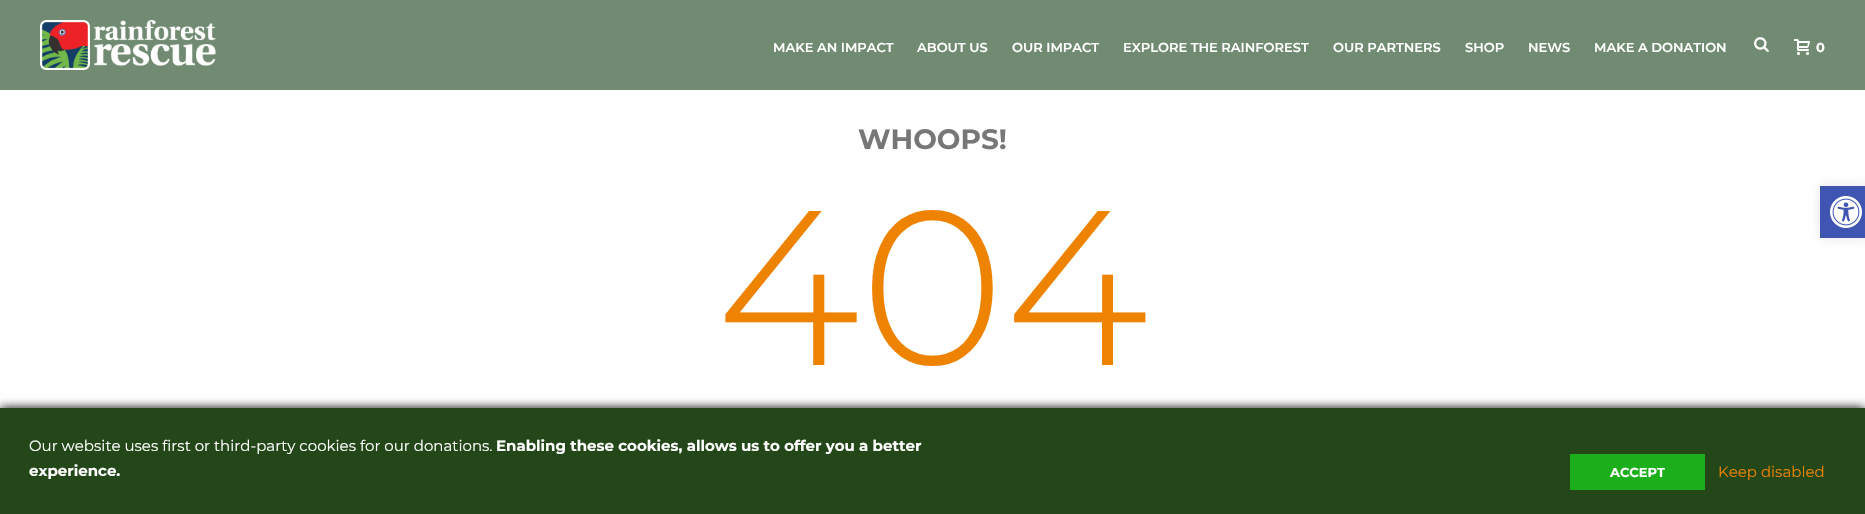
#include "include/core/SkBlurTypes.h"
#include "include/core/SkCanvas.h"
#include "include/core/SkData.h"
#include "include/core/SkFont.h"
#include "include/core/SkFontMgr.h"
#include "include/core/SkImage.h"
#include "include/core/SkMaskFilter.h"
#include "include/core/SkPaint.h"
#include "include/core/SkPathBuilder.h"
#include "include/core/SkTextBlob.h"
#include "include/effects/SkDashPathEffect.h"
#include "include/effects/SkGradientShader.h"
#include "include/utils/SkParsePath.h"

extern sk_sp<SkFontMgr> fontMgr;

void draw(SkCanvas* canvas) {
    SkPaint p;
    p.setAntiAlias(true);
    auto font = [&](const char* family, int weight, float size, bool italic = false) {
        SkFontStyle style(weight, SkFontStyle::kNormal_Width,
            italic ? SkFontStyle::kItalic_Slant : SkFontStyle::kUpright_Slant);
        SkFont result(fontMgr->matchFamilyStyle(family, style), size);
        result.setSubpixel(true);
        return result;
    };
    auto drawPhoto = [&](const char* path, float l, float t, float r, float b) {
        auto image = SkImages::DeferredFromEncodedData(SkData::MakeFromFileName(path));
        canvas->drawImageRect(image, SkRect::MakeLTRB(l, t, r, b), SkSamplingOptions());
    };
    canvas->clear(0xFFFFFFFF);
    p.setColor(0xFF718A72);
    canvas->drawRect(SkRect::MakeLTRB(0, 0, 1865, 90), p);
    drawPhoto("media/1.png", 40, 20, 216, 70);
    auto font1 = font("Montserrat", 600, 13);
    p.setColor(0xFFFFFFFF);
    {
        const struct { const char* s; float x, y; } items[] = {
            {"MAKE AN IMPACT", 773, 52},
            {"ABOUT US", 917, 52},
            {"OUR IMPACT", 1012, 52},
            {"EXPLORE THE RAINFOREST", 1123, 52},
            {"OUR PARTNERS", 1333, 52},
            {"SHOP", 1465, 52},
            {"NEWS", 1528, 52},
            {"MAKE A DONATION", 1594, 52},
        };
        for (auto [s, x, y] : items) {
            canvas->drawString(s, x, y, font1, p);
        }
    }
    drawPhoto("media/2.png", 1754, 37, 1769, 52);
    drawPhoto("media/3.png", 1794, 39, 1810, 55);
    auto font2 = font("Montserrat", 700, 13);
    canvas->drawString("0", 1816, 52, font2, p);
    auto font3 = font("Montserrat", 700, 28);
    p.setColor(0xFF777777);
    canvas->drawString("WHOOPS!", 858, 149, font3, p);
    auto font4 = font("Montserrat", 300, 220);
    p.setColor(0xFFEE8301);
    canvas->drawString("404", 716, 365, font4, p);
    p.setColor(0x1A000000);
    p.setMaskFilter(SkMaskFilter::MakeBlur(kNormal_SkBlurStyle, 5));
    canvas->drawRect(SkRect::MakeLTRB(1820, 186, 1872, 238), p);
    p.setMaskFilter(nullptr);
    p.setColor(0xFF4054B2);
    canvas->drawRect(SkRect::MakeLTRB(1820, 186, 1865, 238), p);
    drawPhoto("media/4.png", 1830, 196, 1862, 228);
    p.setColor(0xFF000000);
    p.setMaskFilter(SkMaskFilter::MakeBlur(kNormal_SkBlurStyle, 5));
    canvas->drawRect(SkRect::MakeLTRB(0, 408, 1865, 514), p);
    p.setMaskFilter(nullptr);
    p.setColor(0xFF244719);
    canvas->drawRect(SkRect::MakeLTRB(0, 408, 1865, 514), p);
    auto font5 = font("Montserrat", 400, 15);
    p.setColor(0xFFFFFFFF);
    canvas->drawString("Our website uses first or third-party cookies for our donations.", 29, 451, font5, p);
    auto font6 = font("Montserrat", 700, 15);
    canvas->drawString("Enabling these cookies, allows us to offer you a better", 496, 451, font6, p);
    canvas->drawString("experience.", 29, 476, font6, p);
    p.setColor(0xFF1DAE1C);
    canvas->drawRect(SkRect::MakeLTRB(1570, 454, 1705, 490), p);
    p.setColor(0xFFFFFFFF);
    canvas->drawString("ACCEPT", 1610, 477, font2, p);
    p.setColor(0xFFEE8301);
    canvas->drawString("Keep disabled", 1718, 477, font5, p);
}
